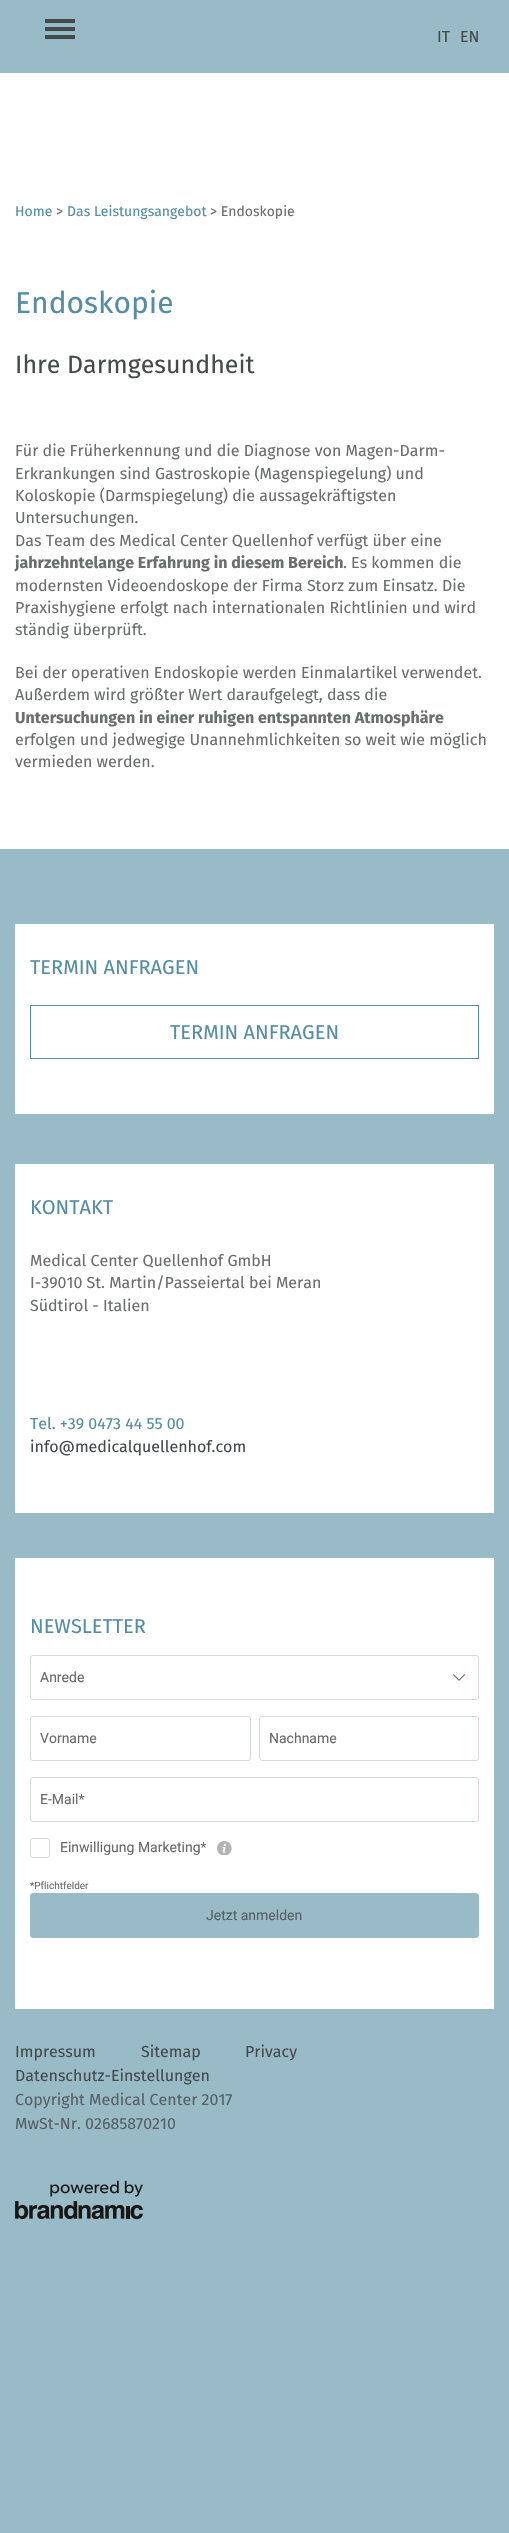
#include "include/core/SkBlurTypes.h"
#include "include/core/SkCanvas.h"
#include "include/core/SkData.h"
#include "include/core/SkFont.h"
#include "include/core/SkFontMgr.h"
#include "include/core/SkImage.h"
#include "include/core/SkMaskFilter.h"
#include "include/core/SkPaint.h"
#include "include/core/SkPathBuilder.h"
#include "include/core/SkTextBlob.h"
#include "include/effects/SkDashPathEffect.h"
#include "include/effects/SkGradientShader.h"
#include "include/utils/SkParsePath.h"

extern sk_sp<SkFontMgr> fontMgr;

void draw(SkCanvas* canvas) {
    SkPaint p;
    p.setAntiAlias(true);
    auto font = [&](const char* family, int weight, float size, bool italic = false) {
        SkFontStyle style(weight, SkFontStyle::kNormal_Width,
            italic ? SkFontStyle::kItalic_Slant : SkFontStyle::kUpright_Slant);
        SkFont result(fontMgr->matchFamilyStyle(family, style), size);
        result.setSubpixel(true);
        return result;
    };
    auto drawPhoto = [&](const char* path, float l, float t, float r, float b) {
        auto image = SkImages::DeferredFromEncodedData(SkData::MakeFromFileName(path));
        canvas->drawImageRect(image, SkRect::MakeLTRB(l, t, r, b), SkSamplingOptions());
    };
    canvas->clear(0xFF99BBC7);
    {
        const struct { float l, t, r, b; SkColor color; } items[] = {
            {45, 27, 75, 31, 0xFF444A4B},
            {45, 19, 75, 23, 0xFF444A4B},
            {45, 35, 75, 39, 0xFF444A4B},
        };
        for (auto [l, t, r, b, color] : items) {
            p.setColor(color);
            canvas->drawRect(SkRect::MakeLTRB(l, t, r, b), p);
        }
    }
    auto font1 = font("Fira Sans", 400, 16);
    canvas->drawString("IT", 437, 42, font1, p);
    canvas->drawString("EN", 460, 42, font1, p);
    p.setColor(0xFFFFFFFF);
    canvas->drawRect(SkRect::MakeLTRB(0, 73, 509, 154), p);
    canvas->drawRect(SkRect::MakeLTRB(0, 154, 509, 849), p);
    auto font2 = font("Fira Sans", 400, 14);
    p.setColor(0xFF558DA3);
    canvas->drawString("Home", 15, 216, font2, p);
    p.setColor(0xFF696E6F);
    canvas->drawString(">", 56, 216, font2, p);
    p.setColor(0xFF558DA3);
    canvas->drawString("Das Leistungsangebot", 67, 216, font2, p);
    p.setColor(0xFF696E6F);
    canvas->drawString("> Endoskopie", 210, 216, font2, p);
    auto font3 = font("Fira Sans", 400, 30);
    p.setColor(0xFF558DA3);
    canvas->drawString("Endoskopie", 15, 313, font3, p);
    auto font4 = font("Fira Sans", 400, 25);
    p.setColor(0xFF444A4B);
    canvas->drawString("Ihre Darmgesundheit", 15, 373, font4, p);
    p.setColor(0xFF696E6F);
    {
        const struct { const char* s; float x, y; } items[] = {
            {"Für die Früherkennung und die Diagnose von Magen-Darm-", 15, 456},
            {"Erkrankungen sind Gastroskopie (Magenspiegelung) und", 15, 479},
            {"Koloskopie (Darmspiegelung) die aussagekräftigsten", 15, 501},
            {"Untersuchungen.", 15, 523},
            {"Das Team des Medical Center Quellenhof verfügt über eine", 15, 546},
        };
        for (auto [s, x, y] : items) {
            canvas->drawString(s, x, y, font1, p);
        }
    }
    auto font5 = font("Fira Sans", 700, 16);
    canvas->drawString("jahrzehntelange Erfahrung in diesem Bereich", 15, 568, font5, p);
    {
        const struct { const char* s; float x, y; } items[] = {
            {". Es kommen die", 343, 568},
            {"modernsten Videoendoskope der Firma Storz zum Einsatz. Die", 15, 591},
            {"Praxishygiene erfolgt nach internationalen Richtlinien und wird", 15, 613},
            {"ständig überprüft.", 15, 635},
            {"Bei der operativen Endoskopie werden Einmalartikel verwendet.", 15, 678},
            {"Außerdem wird größter Wert daraufgelegt, dass die", 15, 700},
        };
        for (auto [s, x, y] : items) {
            canvas->drawString(s, x, y, font1, p);
        }
    }
    canvas->drawString("Untersuchungen in einer ruhigen entspannten Atmosphäre", 15, 723, font5, p);
    canvas->drawString("erfolgen und jedwegige Unannehmlichkeiten so weit wie möglich", 15, 745, font1, p);
    canvas->drawString("vermieden werden.", 15, 767, font1, p);
    p.setColor(0xFFFFFFFF);
    canvas->drawRect(SkRect::MakeLTRB(15, 924, 494, 1114), p);
    auto font6 = font("Fira Sans", 400, 20);
    p.setColor(0xFF558DA3);
    canvas->drawString("TERMIN ANFRAGEN", 30, 974, font6, p);
    p.setStyle(SkPaint::kStroke_Style);
    p.setStrokeWidth(1);
    canvas->drawRect(SkRect::MakeLTRB(30.5f, 1005.5f, 478.5f, 1058.5f), p);
    p.setStyle(SkPaint::kFill_Style);
    canvas->drawString("TERMIN ANFRAGEN", 170, 1039, font6, p);
    p.setColor(0xFFFFFFFF);
    canvas->drawRect(SkRect::MakeLTRB(15, 1164, 494, 1513), p);
    p.setColor(0xFF558DA3);
    canvas->drawString("KONTAKT", 30, 1214, font6, p);
    p.setColor(0xFF696E6F);
    {
        const struct { const char* s; float x, y; } items[] = {
            {"Medical Center Quellenhof GmbH", 30, 1266},
            {"I-39010 St. Martin/Passeiertal bei Meran", 30, 1288},
            {"Südtirol - Italien", 30, 1311},
        };
        for (auto [s, x, y] : items) {
            canvas->drawString(s, x, y, font1, p);
        }
    }
    p.setColor(0xFF558DA3);
    canvas->drawString("Tel. +39 0473 44 55 00", 30, 1429, font1, p);
    p.setColor(0xFF444A4B);
    canvas->drawString("info@medicalquellenhof.com", 30, 1452, font1, p);
    p.setColor(0xFFFFFFFF);
    canvas->drawRect(SkRect::MakeLTRB(15, 1558, 494, 2009), p);
    p.setColor(0xFF558DA3);
    canvas->drawString("NEWSLETTER", 30, 1633, font6, p);
    p.setStyle(SkPaint::kStroke_Style);
    p.setColor(0xFFD4D9DE);
    canvas->drawRoundRect(SkRect::MakeLTRB(30.5f, 1655.5f, 478.5f, 1699.5f), 2.5f, 2.5f, p);
    auto font7 = font("Roboto", 400, 14);
    p.setStyle(SkPaint::kFill_Style);
    p.setColor(0xFF696969);
    canvas->drawString("Anrede", 40, 1682, font7, p);
    drawPhoto("media/1.png", 453, 1674, 465, 1681);
    p.setStyle(SkPaint::kStroke_Style);
    p.setColor(0xFFD4D9DE);
    canvas->drawRoundRect(SkRect::MakeLTRB(30.5f, 1716.5f, 250.5f, 1760.5f), 2.5f, 2.5f, p);
    p.setStyle(SkPaint::kFill_Style);
    p.setColor(0xFF696969);
    canvas->drawString("Vorname", 40, 1743, font7, p);
    p.setStyle(SkPaint::kStroke_Style);
    p.setColor(0xFFD4D9DE);
    canvas->drawRoundRect(SkRect::MakeLTRB(259.5f, 1716.5f, 478.5f, 1760.5f), 2.5f, 2.5f, p);
    p.setStyle(SkPaint::kFill_Style);
    p.setColor(0xFF696969);
    canvas->drawString("Nachname", 269, 1743, font7, p);
    p.setStyle(SkPaint::kStroke_Style);
    p.setColor(0xFFD4D9DE);
    canvas->drawRoundRect(SkRect::MakeLTRB(30.5f, 1777.5f, 478.5f, 1821.5f), 2.5f, 2.5f, p);
    p.setStyle(SkPaint::kFill_Style);
    p.setColor(0xFF696969);
    canvas->drawString("E-Mail*", 40, 1804, font7, p);
    p.setStyle(SkPaint::kStroke_Style);
    p.setColor(0xFFD4D9DE);
    canvas->drawRoundRect(SkRect::MakeLTRB(30.5f, 1838.5f, 49.5f, 1857.5f), 2.5f, 2.5f, p);
    p.setStyle(SkPaint::kFill_Style);
    p.setColor(0xFF696969);
    canvas->drawString("Einwilligung Marketing*", 60, 1852, font7, p);
    drawPhoto("media/2.png", 217, 1841, 232, 1855);
    auto font8 = font("Roboto", 400, 10);
    canvas->drawString("*Pflichtfelder", 30, 1889, font8, p);
    p.setColor(0xFF99BBC7);
    canvas->drawRoundRect(SkRect::MakeLTRB(30.5f, 1893.5f, 478.5f, 1937.5f), 2.5f, 2.5f, p);
    p.setStyle(SkPaint::kStroke_Style);
    canvas->drawRoundRect(SkRect::MakeLTRB(30.5f, 1893.5f, 478.5f, 1937.5f), 2.5f, 2.5f, p);
    p.setStyle(SkPaint::kFill_Style);
    p.setColor(0xFF556164);
    canvas->drawString("Jetzt anmelden", 206, 1920, font7, p);
    p.setColor(0xFF444A4B);
    {
        const struct { const char* s; float x, y; } items[] = {
            {"Impressum", 15, 2057},
            {"Sitemap", 141, 2057},
            {"Privacy", 245, 2057},
            {"Datenschutz-Einstellungen", 15, 2081},
        };
        for (auto [s, x, y] : items) {
            canvas->drawString(s, x, y, font1, p);
        }
    }
    p.setColor(0xFF556164);
    canvas->drawString("Copyright Medical Center 2017", 15, 2105, font1, p);
    canvas->drawString("MwSt-Nr. 02685870210", 15, 2129, font1, p);
    drawPhoto("media/3.png", 15, 2180, 143, 2220);
}
